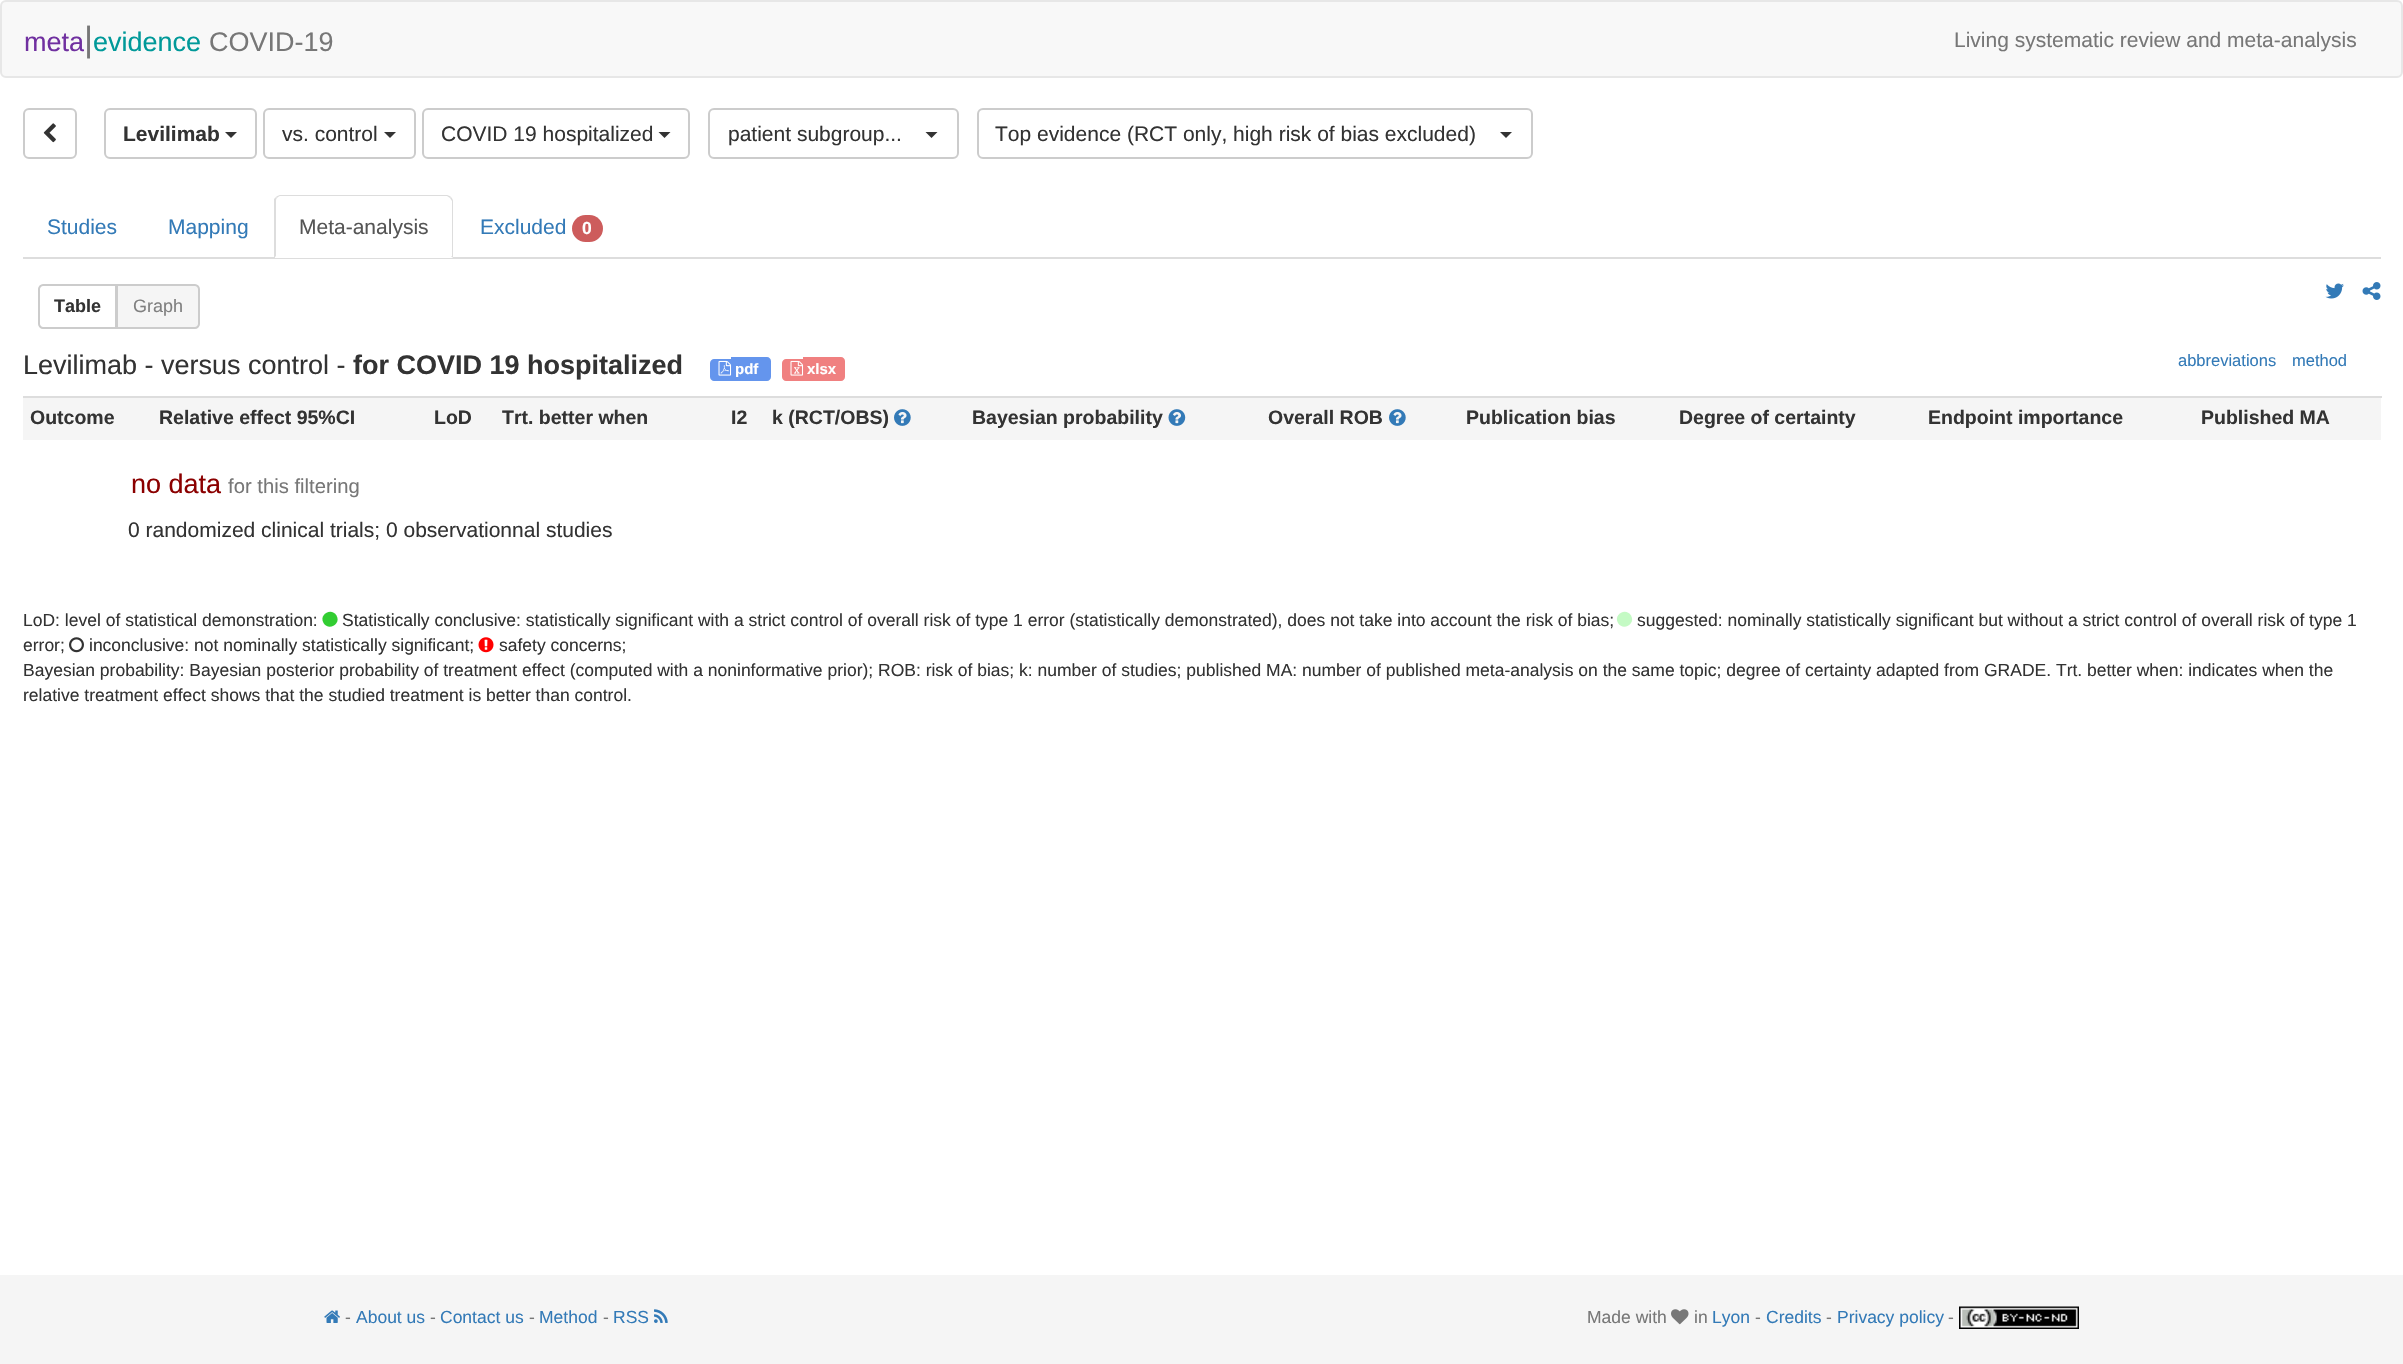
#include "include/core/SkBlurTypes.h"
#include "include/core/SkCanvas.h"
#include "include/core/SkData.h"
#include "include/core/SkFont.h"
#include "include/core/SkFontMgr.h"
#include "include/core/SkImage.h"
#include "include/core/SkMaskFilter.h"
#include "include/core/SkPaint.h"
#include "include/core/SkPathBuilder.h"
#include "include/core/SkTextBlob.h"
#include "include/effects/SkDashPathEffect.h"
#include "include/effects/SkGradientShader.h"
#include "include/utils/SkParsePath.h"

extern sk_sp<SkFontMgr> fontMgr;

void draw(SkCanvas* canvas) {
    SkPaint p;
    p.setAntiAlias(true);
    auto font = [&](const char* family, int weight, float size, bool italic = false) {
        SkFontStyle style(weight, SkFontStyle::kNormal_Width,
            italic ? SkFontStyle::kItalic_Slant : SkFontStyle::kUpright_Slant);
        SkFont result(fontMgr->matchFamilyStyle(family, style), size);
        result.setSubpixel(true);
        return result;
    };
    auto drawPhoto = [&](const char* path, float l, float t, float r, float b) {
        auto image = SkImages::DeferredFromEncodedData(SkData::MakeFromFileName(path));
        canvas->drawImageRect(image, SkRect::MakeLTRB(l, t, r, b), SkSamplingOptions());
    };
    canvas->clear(0xFFFFFFFF);
    p.setColor(0xFFF8F8F8);
    canvas->drawRoundRect(SkRect::MakeLTRB(1, 1, 2402, 77), 5, 5, p);
    p.setStyle(SkPaint::kStroke_Style);
    p.setStrokeWidth(2);
    p.setColor(0xFFE7E7E7);
    canvas->drawRoundRect(SkRect::MakeLTRB(1, 1, 2402, 77), 5, 5, p);
    auto font1 = font("Liberation Sans", 400, 27);
    p.setStyle(SkPaint::kFill_Style);
    p.setColor(0xFF7030A0);
    canvas->drawString("meta", 24, 51, font1, p);
    auto font2 = font("Liberation Sans", 400, 35);
    p.setColor(0xFF777777);
    canvas->drawString("|", 84, 51, font2, p);
    p.setColor(0xFF009999);
    canvas->drawString("evidence", 93, 51, font1, p);
    p.setColor(0xFF777777);
    canvas->drawString("COVID-19", 209, 51, font1, p);
    auto font3 = font("Liberation Sans", 400, 21);
    canvas->drawString("Living systematic review and meta-analysis", 1954, 47, font3, p);
    p.setStyle(SkPaint::kStroke_Style);
    p.setColor(0xFFCCCCCC);
    canvas->drawRoundRect(SkRect::MakeLTRB(24, 109, 76, 158), 5, 5, p);
    drawPhoto("media/1.png", 43, 123, 56, 143);
    canvas->drawRoundRect(SkRect::MakeLTRB(105, 109, 256, 158), 5, 5, p);
    auto font4 = font("Liberation Sans", 700, 21);
    p.setStyle(SkPaint::kFill_Style);
    p.setColor(0xFF333333);
    canvas->drawString("Levilimab", 123, 141, font4, p);
    canvas->drawPath(SkPathBuilder().moveTo(225, 132).lineTo(237, 132).lineTo(231, 138).close().detach(), p);
    p.setStyle(SkPaint::kStroke_Style);
    p.setColor(0xFFCCCCCC);
    canvas->drawRoundRect(SkRect::MakeLTRB(264, 109, 415, 158), 5, 5, p);
    p.setStyle(SkPaint::kFill_Style);
    p.setColor(0xFF333333);
    canvas->drawString("vs. control", 282, 141, font3, p);
    canvas->drawPath(SkPathBuilder().moveTo(384, 132).lineTo(396, 132).lineTo(390, 138).close().detach(), p);
    p.setStyle(SkPaint::kStroke_Style);
    p.setColor(0xFFCCCCCC);
    canvas->drawRoundRect(SkRect::MakeLTRB(423, 109, 689, 158), 5, 5, p);
    p.setStyle(SkPaint::kFill_Style);
    p.setColor(0xFF333333);
    canvas->drawString("COVID 19 hospitalized", 441, 141, font3, p);
    canvas->drawPath(SkPathBuilder().moveTo(658.5f, 132).lineTo(670.5f, 132).lineTo(664.5f, 138).close().detach(), p);
    p.setStyle(SkPaint::kStroke_Style);
    p.setColor(0xFFCCCCCC);
    canvas->drawRoundRect(SkRect::MakeLTRB(709, 109, 958, 158), 5, 5, p);
    p.setStyle(SkPaint::kFill_Style);
    p.setColor(0xFF333333);
    canvas->drawString("patient subgroup...", 728, 141, font3, p);
    canvas->drawPath(SkPathBuilder().moveTo(925.5f, 132).lineTo(937.5f, 132).lineTo(931.5f, 138).close().detach(), p);
    p.setStyle(SkPaint::kStroke_Style);
    p.setColor(0xFFCCCCCC);
    canvas->drawRoundRect(SkRect::MakeLTRB(978, 109, 1532, 158), 5, 5, p);
    p.setStyle(SkPaint::kFill_Style);
    p.setColor(0xFF333333);
    canvas->drawString("Top evidence (RCT only, high risk of bias excluded)", 995, 141, font3, p);
    canvas->drawPath(SkPathBuilder().moveTo(1500, 132).lineTo(1512, 132).lineTo(1506, 138).close().detach(), p);
    p.setColor(0xFFDDDDDD);
    canvas->drawRect(SkRect::MakeLTRB(23, 257, 2381, 259), p);
    p.setColor(0xFF337AB7);
    canvas->drawString("Studies", 47, 234, font3, p);
    canvas->drawString("Mapping", 168, 234, font3, p);
    p.setColor(0xFFFFFFFF);
    canvas->drawPath(SkPathBuilder().moveTo(281, 195).lineTo(447, 195).cubicTo(450.5f, 195, 453, 197.5f, 453, 201).lineTo(453, 258).lineTo(275, 258).lineTo(275, 201).cubicTo(275, 197.5f, 277.5f, 195, 281, 195).close().detach(), p);
    p.setColor(0xFFDDDDDD);
    canvas->drawPath(SkPathBuilder().moveTo(280, 195).cubicTo(279, 195, 277, 196, 276, 197).lineTo(277, 198).cubicTo(278, 197, 279, 196, 280, 196).lineTo(447, 196).lineTo(450, 198).lineTo(451, 197).cubicTo(450, 196, 448, 195, 447, 195).close().detach(), p);
    canvas->drawPath(SkPathBuilder().moveTo(453, 258).lineTo(453, 201).cubicTo(453, 200, 452, 198, 451, 197).lineTo(450, 198).lineTo(452, 201).lineTo(452, 256).lineTo(451, 256).close().detach(), p);
    canvas->drawPath(SkPathBuilder().moveTo(274, 258).lineTo(274, 199).lineTo(276, 197).lineTo(277, 198).cubicTo(276, 199, 276, 200, 276, 201).lineTo(276, 256).close().detach(), p);
    p.setColor(0xFF555555);
    canvas->drawString("Meta-analysis", 299, 234, font3, p);
    p.setColor(0xFF337AB7);
    canvas->drawString("Excluded", 480, 234, font3, p);
    p.setColor(0xFFCD5C5C);
    canvas->drawRoundRect(SkRect::MakeLTRB(572, 215, 603, 242), 13.5f, 13.5f, p);
    auto font5 = font("Liberation Sans", 700, 17.5f);
    p.setColor(0xFFFFFFFF);
    canvas->drawString("0", 582, 234, font5, p);
    drawPhoto("media/2.png", 2325, 283, 2344, 299);
    drawPhoto("media/3.png", 2362, 282, 2381, 300);
    p.setStyle(SkPaint::kStroke_Style);
    p.setColor(0xFFCCCCCC);
    canvas->drawPath(SkPathBuilder().moveTo(43, 285).lineTo(116, 285).lineTo(116, 328).lineTo(43, 328).cubicTo(41, 328, 39, 326, 39, 324).lineTo(39, 289).cubicTo(39, 287, 41, 285, 43, 285).close().detach(), p);
    auto font6 = font("Liberation Sans", 700, 18);
    p.setStyle(SkPaint::kFill_Style);
    p.setColor(0xFF333333);
    canvas->drawString("Table", 54, 312, font6, p);
    p.setColor(0xFFF5F5F5);
    canvas->drawPath(SkPathBuilder().moveTo(117, 285).lineTo(195, 285).cubicTo(197, 285, 199, 287, 199, 289).lineTo(199, 324).cubicTo(199, 326, 197, 328, 195, 328).lineTo(117, 328).close().detach(), p);
    p.setStyle(SkPaint::kStroke_Style);
    p.setColor(0xFFCCCCCC);
    canvas->drawPath(SkPathBuilder().moveTo(117, 285).lineTo(195, 285).cubicTo(197, 285, 199, 287, 199, 289).lineTo(199, 324).cubicTo(199, 326, 197, 328, 195, 328).lineTo(117, 328).close().detach(), p);
    auto font7 = font("Liberation Sans", 400, 18);
    p.setStyle(SkPaint::kFill_Style);
    p.setColor(0xFF808080);
    canvas->drawString("Graph", 133, 312, font7, p);
    p.setColor(0xFF333333);
    canvas->drawString("Levilimab - versus control -", 23, 374, font1, p);
    auto font8 = font("Liberation Sans", 700, 27);
    canvas->drawString("for COVID 19 hospitalized", 353, 374, font8, p);
    auto font9 = font("Liberation Sans", 400, 16.5f);
    p.setColor(0xFF337AB7);
    canvas->drawString("abbreviations", 2178, 366, font9, p);
    canvas->drawString("method", 2292, 366, font9, p);
    p.setColor(0xFF6495ED);
    canvas->drawPath(SkPathBuilder().moveTo(714, 359).lineTo(731, 359).lineTo(731, 381).lineTo(714, 381).cubicTo(712, 381, 710, 379, 710, 377).lineTo(710, 363).cubicTo(710, 361, 712, 359, 714, 359).close().detach(), p);
    canvas->drawPath(SkPathBuilder().moveTo(731, 357).lineTo(767, 357).cubicTo(769, 357, 771, 359, 771, 361).lineTo(771, 377).cubicTo(771, 379, 769, 381, 767, 381).lineTo(731, 381).close().detach(), p);
    drawPhoto("media/4.png", 718, 360, 732, 376);
    auto font10 = font("Liberation Sans", 700, 15);
    p.setColor(0xFFFFFFFF);
    canvas->drawString("pdf", 735, 374, font10, p);
    p.setColor(0xFFF08080);
    canvas->drawPath(SkPathBuilder().moveTo(786, 359).lineTo(803, 359).lineTo(803, 381).lineTo(786, 381).cubicTo(784, 381, 782, 379, 782, 377).lineTo(782, 363).cubicTo(782, 361, 784, 359, 786, 359).close().detach(), p);
    canvas->drawPath(SkPathBuilder().moveTo(803, 357).lineTo(841, 357).cubicTo(843, 357, 845, 359, 845, 361).lineTo(845, 377).cubicTo(845, 379, 843, 381, 841, 381).lineTo(803, 381).close().detach(), p);
    drawPhoto("media/5.png", 790, 360, 804, 376);
    p.setColor(0xFFFFFFFF);
    canvas->drawString("xlsx", 807, 374, font10, p);
    p.setColor(0xFFF5F5F5);
    canvas->drawRect(SkRect::MakeLTRB(23, 398, 2381, 440), p);
    auto font11 = font("Liberation Sans", 700, 19.5f);
    p.setColor(0xFF333333);
    {
        const struct { const char* s; float x, y; } items[] = {
            {"Outcome", 30, 424},
            {"Relative effect 95%CI", 159, 424},
            {"LoD", 434, 424},
            {"Trt. better when", 502, 424},
            {"I2", 731, 424},
            {"k (RCT/OBS)", 772, 424},
        };
        for (auto [s, x, y] : items) {
            canvas->drawString(s, x, y, font11, p);
        }
    }
    drawPhoto("media/6.png", 894, 409, 911, 426);
    canvas->drawString("Bayesian probability", 972, 424, font11, p);
    drawPhoto("media/7.png", 1168, 409, 1186, 426);
    canvas->drawString("Overall ROB", 1268, 424, font11, p);
    drawPhoto("media/6.png", 1389, 409, 1406, 426);
    {
        const struct { const char* s; float x, y; } items[] = {
            {"Publication bias", 1466, 424},
            {"Degree of certainty", 1679, 424},
            {"Endpoint importance", 1928, 424},
        };
        for (auto [s, x, y] : items) {
            canvas->drawString(s, x, y, font11, p);
        }
    }
    p.setColor(0xFFDDDDDD);
    canvas->drawRect(SkRect::MakeLTRB(23, 396, 2382, 398), p);
    p.setColor(0xFF333333);
    canvas->drawString("Published MA", 2201, 424, font11, p);
    p.setColor(0xFF8B0000);
    canvas->drawString("no data", 131, 493, font1, p);
    auto font12 = font("Liberation Sans", 400, 20.25f);
    p.setColor(0xFF777777);
    canvas->drawString("for this filtering", 228, 493, font12, p);
    p.setColor(0xFF333333);
    canvas->drawString("0 randomized clinical trials; 0 observationnal studies", 128, 537, font3, p);
    auto font13 = font("Liberation Sans", 400, 17.5f);
    canvas->drawString("LoD: level of statistical demonstration:", 23, 626, font13, p);
    p.setColor(0xFF32CD32);
    canvas->drawPath(SkPathBuilder().moveTo(336.5f, 615.5f).cubicTo(341.5f, 624, 328.5f, 631.5f, 323.5f, 623).cubicTo(318.5f, 614.5f, 331.5f, 607, 336.5f, 615.5f).close().detach(), p);
    p.setColor(0xFF333333);
    canvas->drawString("Statistically conclusive: statistically significant with a strict control of overall risk of type 1 error (statistically demonstrated), does not take into account the risk of bias;", 342, 626, font13, p);
    p.setColor(0xFFC4FAC4);
    canvas->drawPath(SkPathBuilder().moveTo(1631, 615.5f).cubicTo(1636, 624, 1623, 631.5f, 1618, 623).cubicTo(1613, 614.5f, 1626, 607, 1631, 615.5f).close().detach(), p);
    p.setColor(0xFF333333);
    canvas->drawString("suggested: nominally statistically significant but without a strict control of overall risk of type 1", 1637, 626, font13, p);
    canvas->drawString("error;", 23, 651, font13, p);
    drawPhoto("media/8.png", 69, 637, 84, 653);
    canvas->drawString("inconclusive: not nominally statistically significant;", 89, 651, font13, p);
    drawPhoto("media/9.png", 478, 637, 494, 653);
    {
        const struct { const char* s; float x, y; } items[] = {
            {"safety concerns;", 499, 651},
            {"Bayesian probability: Bayesian posterior probability of treatment effect (computed with a noninformative prior); ROB: risk of bias; k: number of studies; published MA: number of published meta-analysis on the same topic; degree of certainty adapted from GRADE. Trt. better when: indicates when the", 23, 676},
            {"relative treatment effect shows that the studied treatment is better than control.", 23, 701},
        };
        for (auto [s, x, y] : items) {
            canvas->drawString(s, x, y, font13, p);
        }
    }
    p.setColor(0xFFF5F5F5);
    canvas->drawRect(SkRect::MakeLTRB(0, 1275, 2403, 1364), p);
    drawPhoto("media/10.png", 324, 1310, 340, 1323);
    p.setColor(0xFF777777);
    canvas->drawString("-", 345, 1323, font13, p);
    p.setColor(0xFF337AB7);
    canvas->drawString("About us", 356, 1323, font13, p);
    p.setColor(0xFF777777);
    canvas->drawString("-", 430, 1323, font13, p);
    p.setColor(0xFF337AB7);
    canvas->drawString("Contact us", 440, 1323, font13, p);
    p.setColor(0xFF777777);
    canvas->drawString("-", 529, 1323, font13, p);
    p.setColor(0xFF337AB7);
    canvas->drawString("Method", 539, 1323, font13, p);
    p.setColor(0xFF777777);
    canvas->drawString("-", 603, 1323, font13, p);
    p.setColor(0xFF337AB7);
    canvas->drawString("RSS", 613, 1323, font13, p);
    drawPhoto("media/11.png", 654, 1309, 668, 1323);
    p.setColor(0xFF777777);
    canvas->drawString("Made with", 1587, 1323, font13, p);
    drawPhoto("media/12.png", 1671, 1309, 1689, 1325);
    canvas->drawString("in", 1694, 1323, font13, p);
    p.setColor(0xFF337AB7);
    canvas->drawString("Lyon", 1712, 1323, font13, p);
    p.setColor(0xFF777777);
    canvas->drawString("-", 1755, 1323, font13, p);
    p.setColor(0xFF337AB7);
    canvas->drawString("Credits", 1766, 1323, font13, p);
    p.setColor(0xFF777777);
    canvas->drawString("-", 1826, 1323, font13, p);
    p.setColor(0xFF337AB7);
    canvas->drawString("Privacy policy", 1837, 1323, font13, p);
    p.setColor(0xFF777777);
    canvas->drawString("-", 1948, 1323, font13, p);
    drawPhoto("media/13.png", 1959, 1306, 2079, 1329);
}
